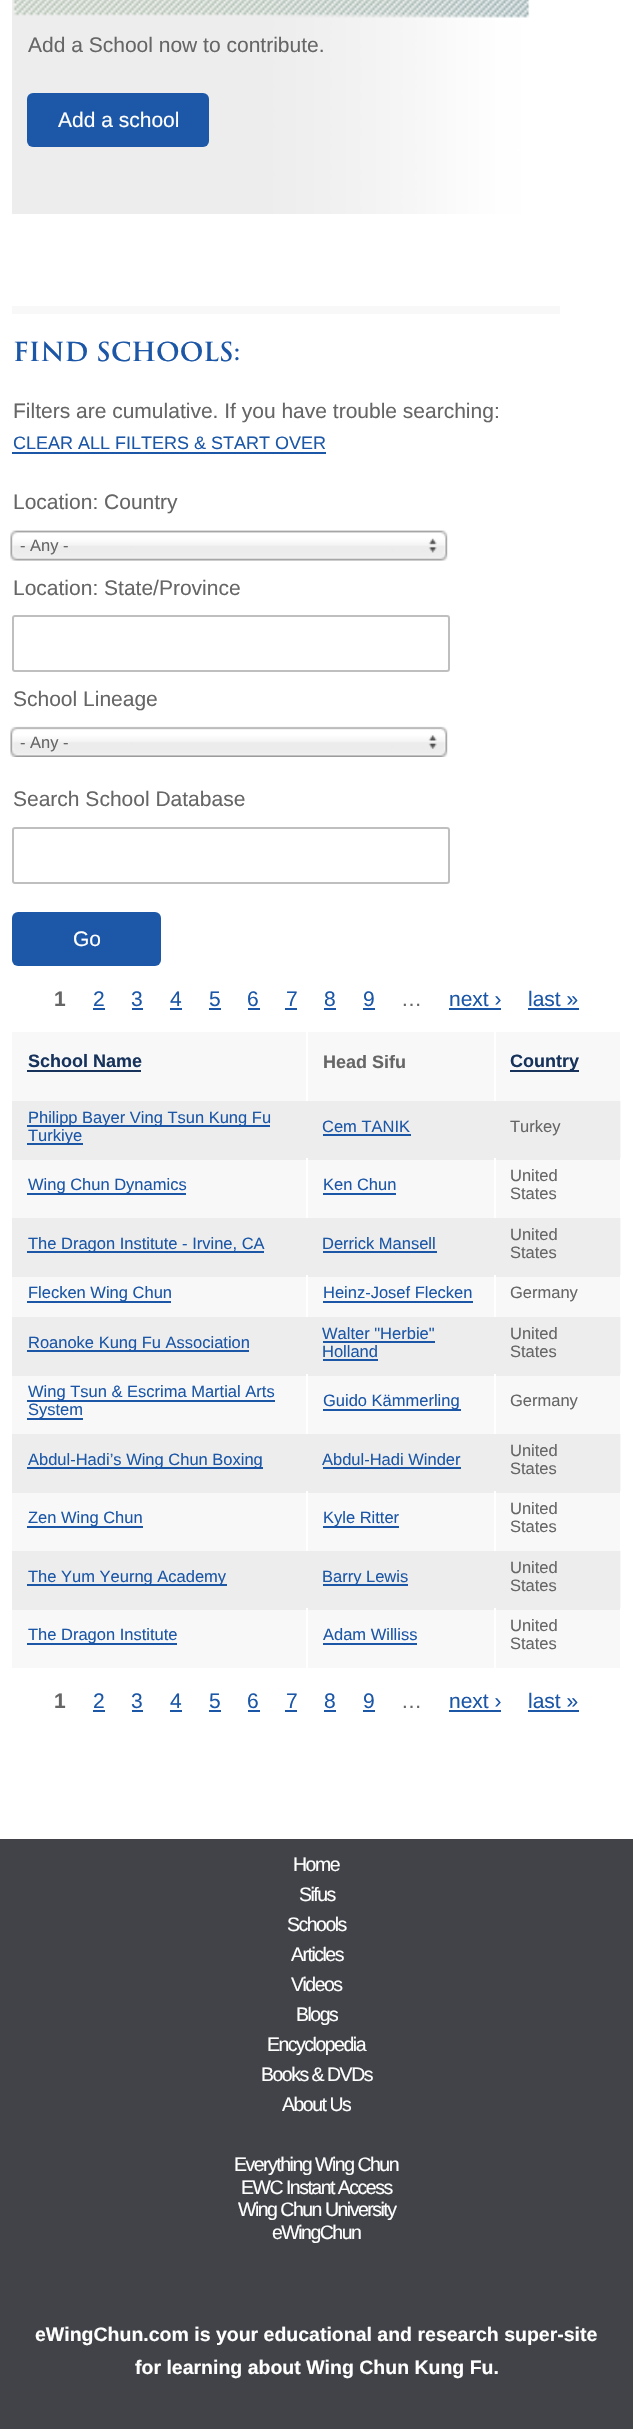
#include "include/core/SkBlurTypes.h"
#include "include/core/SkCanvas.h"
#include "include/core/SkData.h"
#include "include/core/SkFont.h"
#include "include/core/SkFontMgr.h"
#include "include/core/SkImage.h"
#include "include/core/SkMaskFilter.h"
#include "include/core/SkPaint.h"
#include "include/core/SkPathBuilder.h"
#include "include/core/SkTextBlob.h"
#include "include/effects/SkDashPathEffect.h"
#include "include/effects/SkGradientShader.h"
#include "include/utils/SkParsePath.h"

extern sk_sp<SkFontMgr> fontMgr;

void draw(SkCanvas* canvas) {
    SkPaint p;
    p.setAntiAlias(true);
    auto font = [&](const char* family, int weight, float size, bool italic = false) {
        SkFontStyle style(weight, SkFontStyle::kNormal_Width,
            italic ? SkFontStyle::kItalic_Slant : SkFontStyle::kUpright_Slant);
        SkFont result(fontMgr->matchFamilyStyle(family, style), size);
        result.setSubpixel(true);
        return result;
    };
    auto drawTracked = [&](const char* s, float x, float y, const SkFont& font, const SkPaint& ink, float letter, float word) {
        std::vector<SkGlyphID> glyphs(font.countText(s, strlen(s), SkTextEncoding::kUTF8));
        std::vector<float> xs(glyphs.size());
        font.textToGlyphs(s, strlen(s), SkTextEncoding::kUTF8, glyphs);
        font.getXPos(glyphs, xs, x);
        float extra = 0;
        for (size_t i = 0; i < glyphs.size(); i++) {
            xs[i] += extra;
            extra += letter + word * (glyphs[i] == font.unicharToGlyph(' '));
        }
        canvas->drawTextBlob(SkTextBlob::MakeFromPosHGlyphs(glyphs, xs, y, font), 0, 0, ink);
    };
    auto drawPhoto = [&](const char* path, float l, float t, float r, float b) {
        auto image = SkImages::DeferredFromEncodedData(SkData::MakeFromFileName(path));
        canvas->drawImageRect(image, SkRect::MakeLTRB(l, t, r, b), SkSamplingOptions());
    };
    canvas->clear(0xFFFFFFFF);
    drawPhoto("media/1.png", 12, 0, 530, 214);
    auto font1 = font("Liberation Sans", 400, 21);
    p.setColor(0xFF666666);
    canvas->drawString("Add a School now to contribute.", 28, 52, font1, p);
    p.setColor(0xFF1D58A8);
    canvas->drawRoundRect(SkRect::MakeLTRB(27, 93, 209, 147), 6, 6, p);
    p.setColor(0xFFFFFFFF);
    canvas->drawString("Add a school", 58, 127, font1, p);
    p.setColor(0xFFF8F8F8);
    canvas->drawRect(SkRect::MakeLTRB(12, 306, 560, 314), p);
    auto font2 = font("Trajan", 700, 25.5f);
    p.setColor(0xFF1C57A7);
    canvas->drawString("FIND SCHOOLS:", 13, 361, font2, p);
    p.setColor(0xFF666666);
    canvas->drawString("Filters are cumulative. If you have trouble searching:", 13, 418, font1, p);
    auto font3 = font("Liberation Sans", 400, 18);
    p.setColor(0xFF1C57A7);
    canvas->drawString("CLEAR ALL FILTERS & START OVER", 13, 449, font3, p);
    canvas->drawRect(SkRect::MakeLTRB(12, 452, 326, 454), p);
    p.setColor(0xFF666666);
    canvas->drawString("Location: Country", 13, 509, font1, p);
    drawPhoto("media/2.png", 10, 530, 448, 561);
    auto font4 = font("Liberation Sans", 400, 16.5f);
    canvas->drawString("- Any -", 20, 551, font4, p);
    canvas->drawString("Location: State/Province", 13, 595, font1, p);
    p.setStyle(SkPaint::kStroke_Style);
    p.setStrokeWidth(2);
    p.setColor(0xFFBFBFBF);
    canvas->drawRoundRect(SkRect::MakeLTRB(13, 616, 449, 671), 2, 2, p);
    p.setStyle(SkPaint::kFill_Style);
    p.setColor(0xFF666666);
    canvas->drawString("School Lineage", 13, 706, font1, p);
    drawPhoto("media/3.png", 10, 726, 448, 757);
    canvas->drawString("- Any -", 20, 748, font4, p);
    canvas->drawString("Search School Database", 13, 806, font1, p);
    p.setStyle(SkPaint::kStroke_Style);
    p.setColor(0xFFBFBFBF);
    canvas->drawRoundRect(SkRect::MakeLTRB(13, 828, 449, 883), 2, 2, p);
    p.setStyle(SkPaint::kFill_Style);
    p.setColor(0xFF1D58A8);
    canvas->drawRoundRect(SkRect::MakeLTRB(12, 912, 161, 966), 6, 6, p);
    p.setColor(0xFFFFFFFF);
    canvas->drawString("Go", 73, 946, font1, p);
    auto font5 = font("Liberation Sans", 700, 21);
    p.setColor(0xFF666666);
    canvas->drawString("1", 54, 1006, font5, p);
    p.setColor(0xFF1C57A7);
    canvas->drawString("2", 93, 1006, font1, p);
    canvas->drawRect(SkRect::MakeLTRB(93, 1008, 105, 1010), p);
    canvas->drawString("3", 131, 1006, font1, p);
    canvas->drawRect(SkRect::MakeLTRB(132, 1008, 143, 1010), p);
    canvas->drawString("4", 170, 1006, font1, p);
    canvas->drawRect(SkRect::MakeLTRB(170, 1008, 182, 1010), p);
    canvas->drawString("5", 209, 1006, font1, p);
    canvas->drawRect(SkRect::MakeLTRB(209, 1008, 221, 1010), p);
    canvas->drawString("6", 247, 1006, font1, p);
    canvas->drawRect(SkRect::MakeLTRB(248, 1008, 260, 1010), p);
    canvas->drawString("7", 286, 1006, font1, p);
    canvas->drawRect(SkRect::MakeLTRB(285, 1008, 297, 1010), p);
    canvas->drawString("8", 324, 1006, font1, p);
    canvas->drawRect(SkRect::MakeLTRB(324, 1008, 336, 1010), p);
    canvas->drawString("9", 363, 1006, font1, p);
    canvas->drawRect(SkRect::MakeLTRB(363, 1008, 375, 1010), p);
    p.setColor(0xFF666666);
    canvas->drawString("…", 401, 1006, font1, p);
    p.setColor(0xFF1C57A7);
    canvas->drawString("next ›", 449, 1006, font1, p);
    canvas->drawRect(SkRect::MakeLTRB(449, 1008, 501, 1010), p);
    canvas->drawString("last »", 528, 1006, font1, p);
    {
        const struct { float l, t, r, b; SkColor color; } items[] = {
            {528, 1008, 579, 1010, 0xFF1C57A7},
            {12, 1032, 621, 1668, 0xFFF8F8F8},
            {306, 1031, 308, 1101, 0xFFFFFFFF},
        };
        for (auto [l, t, r, b, color] : items) {
            p.setColor(color);
            canvas->drawRect(SkRect::MakeLTRB(l, t, r, b), p);
        }
    }
    auto font6 = font("Liberation Sans", 700, 18);
    p.setColor(0xFF17335B);
    canvas->drawString("School Name", 28, 1067, font6, p);
    canvas->drawRect(SkRect::MakeLTRB(27, 1070, 141, 1072), p);
    p.setColor(0xFFFFFFFF);
    canvas->drawRect(SkRect::MakeLTRB(494, 1031, 496, 1101), p);
    p.setColor(0xFF666666);
    canvas->drawString("Head Sifu", 323, 1068, font6, p);
    p.setColor(0xFFFFFFFF);
    canvas->drawRect(SkRect::MakeLTRB(620, 1031, 621, 1101), p);
    p.setColor(0xFF17335B);
    canvas->drawRect(SkRect::MakeLTRB(510, 1070, 579, 1072), p);
    canvas->drawString("Country", 510, 1067, font6, p);
    p.setColor(0xFFEDEDED);
    canvas->drawRect(SkRect::MakeLTRB(12, 1101, 620, 1160), p);
    p.setColor(0xFF1C57A7);
    canvas->drawRect(SkRect::MakeLTRB(27, 1125, 270, 1127), p);
    canvas->drawString("Philipp Bayer Ving Tsun Kung Fu", 28, 1123, font4, p);
    canvas->drawRect(SkRect::MakeLTRB(27, 1143, 83, 1145), p);
    canvas->drawString("Turkiye", 28, 1141, font4, p);
    canvas->drawString("Cem TANIK", 322, 1132, font4, p);
    canvas->drawRect(SkRect::MakeLTRB(323, 1134, 411, 1136), p);
    p.setColor(0xFF666666);
    canvas->drawString("Turkey", 510, 1132, font4, p);
    p.setColor(0xFFFFFFFF);
    canvas->drawRect(SkRect::MakeLTRB(306, 1158, 308, 1218), p);
    p.setColor(0xFF1C57A7);
    canvas->drawRect(SkRect::MakeLTRB(27, 1193, 186, 1195), p);
    canvas->drawString("Wing Chun Dynamics", 28, 1190, font4, p);
    p.setColor(0xFFFFFFFF);
    canvas->drawRect(SkRect::MakeLTRB(494, 1158, 496, 1218), p);
    p.setColor(0xFF1C57A7);
    canvas->drawString("Ken Chun", 323, 1190, font4, p);
    canvas->drawRect(SkRect::MakeLTRB(323, 1193, 396, 1195), p);
    p.setColor(0xFFFFFFFF);
    canvas->drawRect(SkRect::MakeLTRB(620, 1158, 621, 1218), p);
    p.setColor(0xFF666666);
    canvas->drawString("United", 510, 1181, font4, p);
    canvas->drawString("States", 510, 1199, font4, p);
    p.setColor(0xFFEDEDED);
    canvas->drawRect(SkRect::MakeLTRB(12, 1218, 620, 1277), p);
    p.setColor(0xFF1C57A7);
    canvas->drawRect(SkRect::MakeLTRB(27, 1251, 264, 1253), p);
    canvas->drawString("The Dragon Institute - Irvine, CA", 28, 1249, font4, p);
    canvas->drawString("Derrick Mansell", 322, 1249, font4, p);
    canvas->drawRect(SkRect::MakeLTRB(323, 1251, 437, 1253), p);
    p.setColor(0xFF666666);
    canvas->drawString("United", 510, 1240, font4, p);
    canvas->drawString("States", 510, 1258, font4, p);
    p.setColor(0xFFFFFFFF);
    canvas->drawRect(SkRect::MakeLTRB(306, 1275, 308, 1317), p);
    p.setColor(0xFF1C57A7);
    canvas->drawRect(SkRect::MakeLTRB(27, 1301, 171, 1303), p);
    canvas->drawString("Flecken Wing Chun", 28, 1298, font4, p);
    p.setColor(0xFFFFFFFF);
    canvas->drawRect(SkRect::MakeLTRB(494, 1275, 496, 1317), p);
    p.setColor(0xFF1C57A7);
    canvas->drawString("Heinz-Josef Flecken", 323, 1298, font4, p);
    canvas->drawRect(SkRect::MakeLTRB(323, 1301, 473, 1303), p);
    p.setColor(0xFFFFFFFF);
    canvas->drawRect(SkRect::MakeLTRB(620, 1275, 621, 1317), p);
    p.setColor(0xFF666666);
    canvas->drawString("Germany", 510, 1298, font4, p);
    p.setColor(0xFFEDEDED);
    canvas->drawRect(SkRect::MakeLTRB(12, 1317, 620, 1376), p);
    p.setColor(0xFF1C57A7);
    canvas->drawRect(SkRect::MakeLTRB(27, 1350, 249, 1352), p);
    canvas->drawString("Roanoke Kung Fu Association", 28, 1348, font4, p);
    canvas->drawString("Walter \"Herbie\"", 322, 1339, font4, p);
    canvas->drawRect(SkRect::MakeLTRB(323, 1341, 435, 1343), p);
    canvas->drawString("Holland", 322, 1357, font4, p);
    canvas->drawRect(SkRect::MakeLTRB(323, 1359, 378, 1361), p);
    p.setColor(0xFF666666);
    canvas->drawString("United", 510, 1339, font4, p);
    canvas->drawString("States", 510, 1357, font4, p);
    p.setColor(0xFFFFFFFF);
    canvas->drawRect(SkRect::MakeLTRB(306, 1374, 308, 1434), p);
    p.setColor(0xFF1C57A7);
    canvas->drawRect(SkRect::MakeLTRB(27, 1400, 275, 1402), p);
    canvas->drawString("Wing Tsun & Escrima Martial Arts", 28, 1397, font4, p);
    canvas->drawRect(SkRect::MakeLTRB(27, 1418, 83, 1420), p);
    canvas->drawString("System", 28, 1415, font4, p);
    p.setColor(0xFFFFFFFF);
    canvas->drawRect(SkRect::MakeLTRB(494, 1374, 496, 1434), p);
    p.setColor(0xFF1C57A7);
    canvas->drawRect(SkRect::MakeLTRB(323, 1409, 461, 1411), p);
    canvas->drawString("Guido Kämmerling", 323, 1406, font4, p);
    p.setColor(0xFFFFFFFF);
    canvas->drawRect(SkRect::MakeLTRB(620, 1374, 621, 1434), p);
    p.setColor(0xFF666666);
    canvas->drawString("Germany", 510, 1406, font4, p);
    p.setColor(0xFFEDEDED);
    canvas->drawRect(SkRect::MakeLTRB(12, 1434, 620, 1493), p);
    p.setColor(0xFF1C57A7);
    canvas->drawRect(SkRect::MakeLTRB(27, 1467, 263, 1469), p);
    canvas->drawString("Abdul-Hadi’s Wing Chun Boxing", 28, 1465, font4, p);
    canvas->drawString("Abdul-Hadi Winder", 322, 1465, font4, p);
    canvas->drawRect(SkRect::MakeLTRB(323, 1467, 461, 1469), p);
    p.setColor(0xFF666666);
    canvas->drawString("United", 510, 1456, font4, p);
    canvas->drawString("States", 510, 1474, font4, p);
    p.setColor(0xFFFFFFFF);
    canvas->drawRect(SkRect::MakeLTRB(306, 1491, 308, 1551), p);
    p.setColor(0xFF1C57A7);
    canvas->drawRect(SkRect::MakeLTRB(27, 1526, 143, 1528), p);
    canvas->drawString("Zen Wing Chun", 28, 1523, font4, p);
    p.setColor(0xFFFFFFFF);
    canvas->drawRect(SkRect::MakeLTRB(494, 1491, 496, 1551), p);
    p.setColor(0xFF1C57A7);
    canvas->drawRect(SkRect::MakeLTRB(323, 1526, 399, 1528), p);
    canvas->drawString("Kyle Ritter", 323, 1523, font4, p);
    p.setColor(0xFFFFFFFF);
    canvas->drawRect(SkRect::MakeLTRB(620, 1491, 621, 1551), p);
    p.setColor(0xFF666666);
    canvas->drawString("United", 510, 1514, font4, p);
    canvas->drawString("States", 510, 1532, font4, p);
    p.setColor(0xFFEDEDED);
    canvas->drawRect(SkRect::MakeLTRB(12, 1551, 620, 1610), p);
    p.setColor(0xFF1C57A7);
    canvas->drawRect(SkRect::MakeLTRB(27, 1584, 227, 1586), p);
    canvas->drawString("The Yum Yeurng Academy", 28, 1582, font4, p);
    canvas->drawRect(SkRect::MakeLTRB(323, 1584, 408, 1586), p);
    canvas->drawString("Barry Lewis", 322, 1582, font4, p);
    p.setColor(0xFF666666);
    canvas->drawString("United", 510, 1573, font4, p);
    canvas->drawString("States", 510, 1591, font4, p);
    p.setColor(0xFFFFFFFF);
    canvas->drawRect(SkRect::MakeLTRB(306, 1608, 308, 1668), p);
    p.setColor(0xFF1C57A7);
    canvas->drawRect(SkRect::MakeLTRB(27, 1643, 177, 1645), p);
    canvas->drawString("The Dragon Institute", 28, 1640, font4, p);
    p.setColor(0xFFFFFFFF);
    canvas->drawRect(SkRect::MakeLTRB(494, 1608, 496, 1668), p);
    p.setColor(0xFF1C57A7);
    canvas->drawString("Adam Williss", 323, 1640, font4, p);
    canvas->drawRect(SkRect::MakeLTRB(323, 1643, 417, 1645), p);
    p.setColor(0xFFFFFFFF);
    canvas->drawRect(SkRect::MakeLTRB(620, 1608, 621, 1668), p);
    p.setColor(0xFF666666);
    canvas->drawString("United", 510, 1631, font4, p);
    canvas->drawString("States", 510, 1649, font4, p);
    canvas->drawString("1", 54, 1708, font5, p);
    p.setColor(0xFF1C57A7);
    canvas->drawString("2", 93, 1708, font1, p);
    canvas->drawRect(SkRect::MakeLTRB(93, 1710, 105, 1712), p);
    canvas->drawString("3", 131, 1708, font1, p);
    canvas->drawRect(SkRect::MakeLTRB(132, 1710, 143, 1712), p);
    canvas->drawString("4", 170, 1708, font1, p);
    canvas->drawRect(SkRect::MakeLTRB(170, 1710, 182, 1712), p);
    canvas->drawString("5", 209, 1708, font1, p);
    canvas->drawRect(SkRect::MakeLTRB(209, 1710, 221, 1712), p);
    canvas->drawString("6", 247, 1708, font1, p);
    canvas->drawRect(SkRect::MakeLTRB(248, 1710, 260, 1712), p);
    canvas->drawString("7", 286, 1708, font1, p);
    canvas->drawRect(SkRect::MakeLTRB(285, 1710, 297, 1712), p);
    canvas->drawString("8", 324, 1708, font1, p);
    canvas->drawRect(SkRect::MakeLTRB(324, 1710, 336, 1712), p);
    canvas->drawString("9", 363, 1708, font1, p);
    canvas->drawRect(SkRect::MakeLTRB(363, 1710, 375, 1712), p);
    p.setColor(0xFF666666);
    canvas->drawString("…", 401, 1708, font1, p);
    p.setColor(0xFF1C57A7);
    canvas->drawString("next ›", 449, 1708, font1, p);
    canvas->drawRect(SkRect::MakeLTRB(449, 1710, 501, 1712), p);
    canvas->drawString("last »", 528, 1708, font1, p);
    canvas->drawRect(SkRect::MakeLTRB(528, 1710, 579, 1712), p);
    p.setColor(0xFF414348);
    canvas->drawRect(SkRect::MakeLTRB(0, 1839, 633, 2429), p);
    auto font7 = font("Liberation Sans", 400, 19.5f);
    p.setColor(0xFFFFFFFF);
    {
        const struct { const char* s; float x, y; } items[] = {
            {"Home", 293, 1871},
            {"Sifus", 299, 1901},
            {"Schools", 287, 1931},
            {"Articles", 291, 1961},
            {"Videos", 291, 1991},
            {"Blogs", 296, 2021},
            {"Encyclopedia", 267, 2051},
            {"Books & DVDs", 261, 2081},
            {"About Us", 282, 2111},
            {"Everything Wing Chun", 234, 2171},
            {"EWC Instant Access", 241, 2194},
            {"Wing Chun University", 238, 2216},
            {"eWingChun", 272, 2239},
        };
        for (auto [s, x, y] : items) {
            drawTracked(s, x, y, font7, p, -1.5f, 0);
        }
    }
    auto font8 = font("Liberation Sans", 700, 19.5f);
    canvas->drawString("eWingChun.com is your educational and research super-site", 35, 2341, font8, p);
    canvas->drawString("for learning about Wing Chun Kung Fu.", 135, 2374, font8, p);
}
